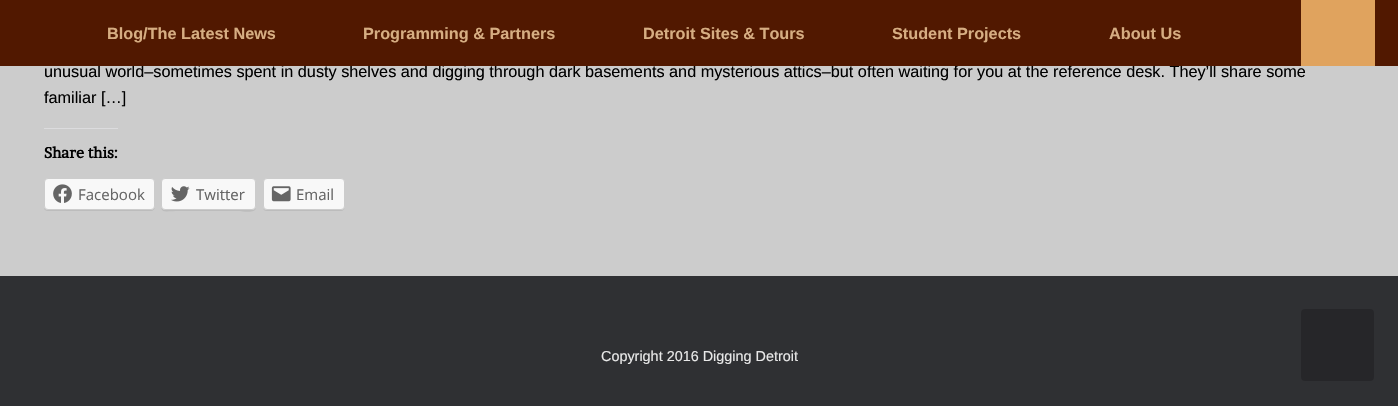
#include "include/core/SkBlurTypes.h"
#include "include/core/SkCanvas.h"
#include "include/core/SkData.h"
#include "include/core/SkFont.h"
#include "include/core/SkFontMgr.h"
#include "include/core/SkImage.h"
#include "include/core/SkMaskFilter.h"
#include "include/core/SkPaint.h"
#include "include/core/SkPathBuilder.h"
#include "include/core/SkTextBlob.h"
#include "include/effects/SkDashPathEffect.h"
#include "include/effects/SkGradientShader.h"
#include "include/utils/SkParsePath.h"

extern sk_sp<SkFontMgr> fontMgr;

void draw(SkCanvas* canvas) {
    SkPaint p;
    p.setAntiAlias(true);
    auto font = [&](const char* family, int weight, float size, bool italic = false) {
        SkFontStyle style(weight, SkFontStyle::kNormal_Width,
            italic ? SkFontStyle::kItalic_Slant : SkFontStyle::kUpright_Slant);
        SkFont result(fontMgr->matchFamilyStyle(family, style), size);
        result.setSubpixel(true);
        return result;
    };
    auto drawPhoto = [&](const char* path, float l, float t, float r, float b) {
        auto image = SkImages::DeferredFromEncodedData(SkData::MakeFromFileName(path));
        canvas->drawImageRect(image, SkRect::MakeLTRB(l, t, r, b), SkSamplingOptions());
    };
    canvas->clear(0xFF2F3033);
    p.setColor(0xFFCCCCCC);
    canvas->drawRect(SkRect::MakeLTRB(0, 66, 1398, 276), p);
    auto font1 = font("Liberation Sans", 400, 16.25f);
    p.setColor(0xFF000000);
    canvas->drawString("unusual world–sometimes spent in dusty shelves and digging through dark basements and mysterious attics–but often waiting for you at the reference desk. They’ll share some", 44, 77, font1, p);
    p.setColor(0xFF511800);
    canvas->drawRect(SkRect::MakeLTRB(0, 0, 1398, 66), p);
    auto font2 = font("Liberation Sans", 700, 16.25f);
    p.setColor(0xFFD6AD82);
    {
        const struct { const char* s; float x, y; } items[] = {
            {"Blog/The Latest News", 107, 39},
            {"Programming & Partners", 363, 39},
            {"Detroit Sites & Tours", 643, 39},
            {"Student Projects", 892, 39},
            {"About Us", 1109, 39},
        };
        for (auto [s, x, y] : items) {
            canvas->drawString(s, x, y, font2, p);
        }
    }
    p.setColor(0xFFE0A35E);
    canvas->drawRect(SkRect::MakeLTRB(1301, 0, 1375, 66), p);
    p.setColor(0xFF000000);
    canvas->drawString("familiar […]", 44, 103, font1, p);
    p.setColor(0xFFDCDCDE);
    canvas->drawRect(SkRect::MakeLTRB(44, 128, 118, 129), p);
    auto font3 = font("Brawler", 700, 15);
    p.setColor(0xFF000000);
    canvas->drawString("Share this:", 44, 158, font3, p);
    p.setColor(0xFFBCBCBC);
    canvas->drawPath(SkPathBuilder().moveTo(44, 208).cubicTo(44, 210, 46, 211, 48, 211).lineTo(151, 211).cubicTo(153, 211, 155, 209, 155, 207).lineTo(155, 206).cubicTo(155, 208, 153, 210, 151, 210).lineTo(48, 210).cubicTo(46, 210, 45, 209, 44, 208).close().detach(), p);
    p.setColor(0xFFF8F8F8);
    canvas->drawRoundRect(SkRect::MakeLTRB(44.5f, 178.5f, 154.5f, 209.5f), 3.5f, 3.5f, p);
    p.setStyle(SkPaint::kStroke_Style);
    p.setStrokeWidth(1);
    p.setColor(0xFFCCCCCC);
    canvas->drawRoundRect(SkRect::MakeLTRB(44.5f, 178.5f, 154.5f, 209.5f), 3.5f, 3.5f, p);
    drawPhoto("media/1.png", 53, 184, 72, 203);
    auto font4 = font("Open Sans", 400, 15);
    p.setStyle(SkPaint::kFill_Style);
    p.setColor(0xFF656565);
    canvas->drawString("Facebook", 78, 200, font4, p);
    p.setColor(0xFFBCBCBC);
    canvas->drawPath(SkPathBuilder().moveTo(161, 182).lineTo(161, 199).cubicTo(161, 215, 161, 211, 180, 211).lineTo(238, 211).cubicTo(243, 211, 255, 214, 256, 208).cubicTo(255, 209, 254, 210, 252, 210).lineTo(165, 210).cubicTo(163, 210, 161, 208, 161, 206).close().detach(), p);
    p.setColor(0xFFF8F8F8);
    canvas->drawRoundRect(SkRect::MakeLTRB(161.5f, 178.5f, 255.5f, 209.5f), 3.5f, 3.5f, p);
    p.setStyle(SkPaint::kStroke_Style);
    p.setColor(0xFFCCCCCC);
    canvas->drawRoundRect(SkRect::MakeLTRB(161.5f, 178.5f, 255.5f, 209.5f), 3.5f, 3.5f, p);
    drawPhoto("media/2.png", 171, 186, 190, 202);
    p.setStyle(SkPaint::kFill_Style);
    p.setColor(0xFF656565);
    canvas->drawString("Twitter", 196, 200, font4, p);
    p.setColor(0xFFBCBCBC);
    canvas->drawPath(SkPathBuilder().moveTo(263, 209).cubicTo(264, 210, 265, 211, 267, 211).lineTo(341, 211).cubicTo(343, 211, 345, 209, 345, 207).lineTo(345, 206).lineTo(345, 207).cubicTo(345, 209, 343, 210, 341, 210).lineTo(266, 210).close().detach(), p);
    p.setColor(0xFFF8F8F8);
    canvas->drawRoundRect(SkRect::MakeLTRB(263.5f, 178.5f, 344.5f, 209.5f), 3.5f, 3.5f, p);
    p.setStyle(SkPaint::kStroke_Style);
    p.setColor(0xFFCCCCCC);
    canvas->drawRoundRect(SkRect::MakeLTRB(263.5f, 178.5f, 344.5f, 209.5f), 3.5f, 3.5f, p);
    drawPhoto("media/3.png", 271, 186, 291, 202);
    p.setStyle(SkPaint::kFill_Style);
    p.setColor(0xFF656565);
    canvas->drawString("Email", 296, 200, font4, p);
    auto font5 = font("Liberation Sans", 400, 14.4f);
    p.setColor(0xFFE8E8E8);
    canvas->drawString("Copyright 2016 Digging Detroit", 601, 361, font5, p);
    p.setColor(0xFF262629);
    canvas->drawRoundRect(SkRect::MakeLTRB(1301, 309, 1374, 381), 4, 4, p);
}
